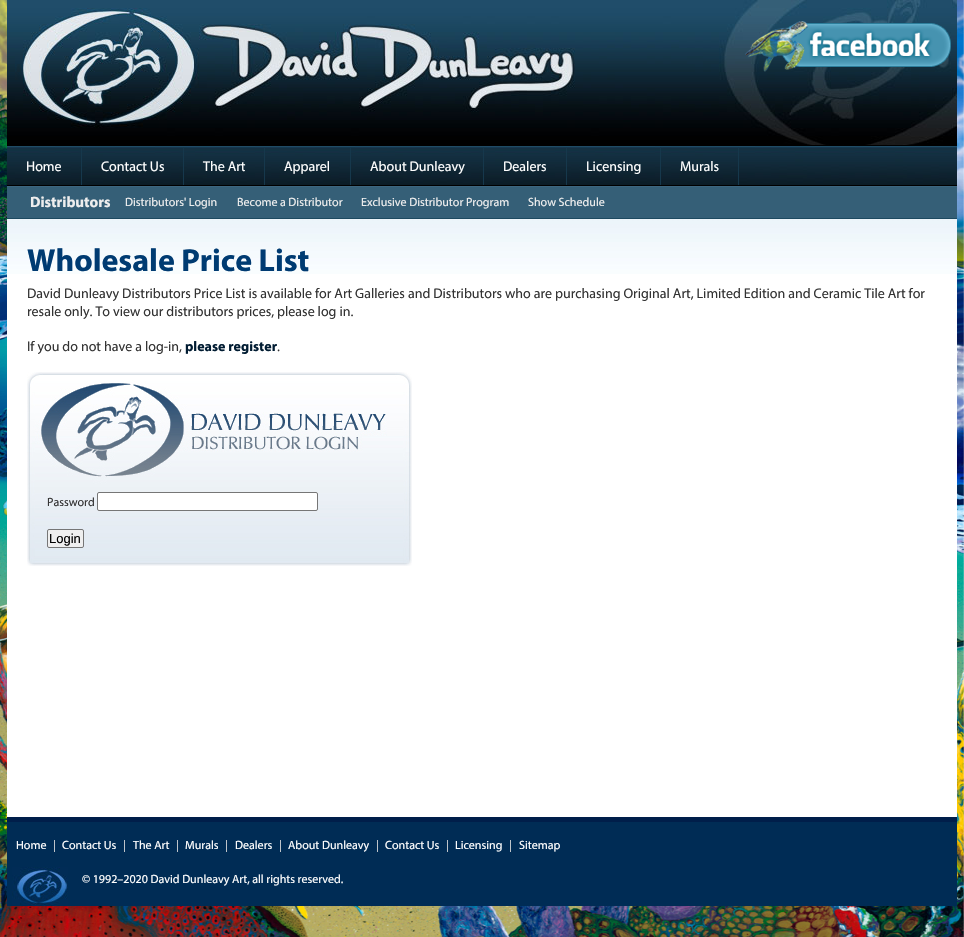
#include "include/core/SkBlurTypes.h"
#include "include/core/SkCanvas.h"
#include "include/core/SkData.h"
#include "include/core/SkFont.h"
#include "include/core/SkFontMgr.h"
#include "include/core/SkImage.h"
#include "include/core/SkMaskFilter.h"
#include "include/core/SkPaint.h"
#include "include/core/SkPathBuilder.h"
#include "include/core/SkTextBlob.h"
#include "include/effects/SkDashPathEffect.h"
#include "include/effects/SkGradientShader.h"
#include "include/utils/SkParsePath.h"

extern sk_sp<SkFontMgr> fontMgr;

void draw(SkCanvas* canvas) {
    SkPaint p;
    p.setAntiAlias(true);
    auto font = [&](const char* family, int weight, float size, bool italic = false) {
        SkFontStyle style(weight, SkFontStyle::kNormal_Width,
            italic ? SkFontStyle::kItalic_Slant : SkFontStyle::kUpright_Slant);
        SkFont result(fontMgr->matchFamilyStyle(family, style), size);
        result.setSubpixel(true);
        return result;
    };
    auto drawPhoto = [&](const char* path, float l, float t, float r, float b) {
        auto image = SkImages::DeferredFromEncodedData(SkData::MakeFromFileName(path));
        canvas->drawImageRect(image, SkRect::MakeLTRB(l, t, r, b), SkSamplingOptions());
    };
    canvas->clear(0xFFFFFFFF);
    drawPhoto("media/1.png", 0, 0, 964, 937);
    p.setColor(0xFFFFFFFF);
    canvas->drawRect(SkRect::MakeLTRB(7, 274, 957, 817), p);
    drawPhoto("media/2.png", 7, 0, 957, 145);
    drawPhoto("media/3.png", 745, 21, 951, 72);
    p.setColor(0xFF000000);
    canvas->drawRect(SkRect::MakeLTRB(7, 145, 957, 146), p);
    drawPhoto("media/4.png", 7, 146, 957, 185);
    canvas->drawRect(SkRect::MakeLTRB(7, 185, 957, 186), p);
    p.setColor(0xFF16384C);
    canvas->drawRect(SkRect::MakeLTRB(81, 147, 82, 185), p);
    auto font1 = font("Myriad", 400, 14);
    p.setColor(0xFFFFFFFF);
    canvas->drawString("Home", 26, 171, font1, p);
    p.setColor(0xFF16384C);
    canvas->drawRect(SkRect::MakeLTRB(183, 147, 184, 185), p);
    p.setColor(0xFFFFFFFF);
    canvas->drawString("Contact Us", 101, 171, font1, p);
    p.setColor(0xFF16384C);
    canvas->drawRect(SkRect::MakeLTRB(264, 147, 265, 185), p);
    p.setColor(0xFFFFFFFF);
    canvas->drawString("The Art", 203, 171, font1, p);
    p.setColor(0xFF16384C);
    canvas->drawRect(SkRect::MakeLTRB(350, 147, 351, 185), p);
    p.setColor(0xFFFFFFFF);
    canvas->drawString("Apparel", 284, 171, font1, p);
    p.setColor(0xFF16384C);
    canvas->drawRect(SkRect::MakeLTRB(483, 147, 484, 185), p);
    p.setColor(0xFFFFFFFF);
    canvas->drawString("About Dunleavy", 370, 171, font1, p);
    p.setColor(0xFF16384C);
    canvas->drawRect(SkRect::MakeLTRB(566, 147, 567, 185), p);
    p.setColor(0xFFFFFFFF);
    canvas->drawString("Dealers", 503, 171, font1, p);
    p.setColor(0xFF16384C);
    canvas->drawRect(SkRect::MakeLTRB(660, 147, 661, 185), p);
    p.setColor(0xFFFFFFFF);
    canvas->drawString("Licensing", 586, 171, font1, p);
    p.setColor(0xFF16384C);
    canvas->drawRect(SkRect::MakeLTRB(738, 147, 739, 185), p);
    p.setColor(0xFFFFFFFF);
    canvas->drawString("Murals", 680, 171, font1, p);
    drawPhoto("media/5.png", 7, 219, 957, 274);
    {
        const struct { float l, t, r, b; SkColor color; } items[] = {
            {7, 817, 957, 822, 0xFF001E4A},
            {7, 187, 957, 218, 0xFF355F77},
            {7, 186, 957, 187, 0xFF3D667F},
            {7, 218, 957, 219, 0xFF1D4960},
        };
        for (auto [l, t, r, b, color] : items) {
            p.setColor(color);
            canvas->drawRect(SkRect::MakeLTRB(l, t, r, b), p);
        }
    }
    auto font2 = font("Myriad", 700, 15);
    p.setColor(0xFFEEEEEE);
    canvas->drawString("Distributors", 30, 207, font2, p);
    auto font3 = font("Myriad", 400, 12);
    {
        const struct { const char* s; float x, y; } items[] = {
            {"Distributors' Login", 125, 206},
            {"Become a Distributor", 237, 206},
            {"Exclusive Distributor Program", 361, 206},
            {"Show Schedule", 528, 206},
        };
        for (auto [s, x, y] : items) {
            canvas->drawString(s, x, y, font3, p);
        }
    }
    auto font4 = font("Myriad", 700, 32);
    p.setColor(0xFF003B72);
    canvas->drawString("Wholesale Price List", 27, 271, font4, p);
    p.setColor(0xFF333333);
    {
        const struct { const char* s; float x, y; } items[] = {
            {"David Dunleavy Distributors Price List is available for Art Galleries and Distributors who are purchasing Original Art, Limited Edition and Ceramic Tile Art for", 27, 298},
            {"resale only. To view our distributors prices, please log in.", 27, 316},
            {"If you do not have a log-in,", 27, 351},
        };
        for (auto [s, x, y] : items) {
            canvas->drawString(s, x, y, font1, p);
        }
    }
    auto font5 = font("Myriad", 700, 14);
    p.setColor(0xFF011C32);
    canvas->drawString("please register", 185, 351, font5, p);
    p.setColor(0xFF333333);
    canvas->drawString(".", 277, 351, font1, p);
    drawPhoto("media/6.png", 27, 372, 412, 566);
    canvas->drawString("Password", 47, 506, font3, p);
    p.setColor(0xFFFFFFFF);
    canvas->drawRoundRect(SkRect::MakeLTRB(97.5f, 492.5f, 317.5f, 510.5f), 1.5f, 1.5f, p);
    p.setStyle(SkPaint::kStroke_Style);
    p.setStrokeWidth(1);
    p.setColor(0xFF767676);
    canvas->drawRoundRect(SkRect::MakeLTRB(97.5f, 492.5f, 317.5f, 510.5f), 1.5f, 1.5f, p);
    p.setStyle(SkPaint::kFill_Style);
    p.setColor(0xFFEFEFEF);
    canvas->drawRoundRect(SkRect::MakeLTRB(47.5f, 529.5f, 83.5f, 547.5f), 1.5f, 1.5f, p);
    p.setStyle(SkPaint::kStroke_Style);
    p.setColor(0xFF767676);
    canvas->drawRoundRect(SkRect::MakeLTRB(47.5f, 529.5f, 83.5f, 547.5f), 1.5f, 1.5f, p);
    auto font6 = font("Liberation Sans", 400, 13);
    p.setStyle(SkPaint::kFill_Style);
    p.setColor(0xFF000000);
    canvas->drawString("Login", 49, 543, font6, p);
    p.setColor(0xFF002C55);
    canvas->drawRect(SkRect::MakeLTRB(7, 822, 957, 906), p);
    p.setColor(0xFFFFFFFF);
    canvas->drawString("Home", 16, 849, font3, p);
    p.setColor(0xFFDDDDDD);
    canvas->drawString("|", 53, 849, font3, p);
    p.setColor(0xFFFFFFFF);
    canvas->drawString("Contact Us", 62, 849, font3, p);
    p.setColor(0xFFDDDDDD);
    canvas->drawString("|", 123, 849, font3, p);
    p.setColor(0xFFFFFFFF);
    canvas->drawString("The Art", 133, 849, font3, p);
    p.setColor(0xFFDDDDDD);
    canvas->drawString("|", 176, 849, font3, p);
    p.setColor(0xFFFFFFFF);
    canvas->drawString("Murals", 185, 849, font3, p);
    p.setColor(0xFFDDDDDD);
    canvas->drawString("|", 225, 849, font3, p);
    p.setColor(0xFFFFFFFF);
    canvas->drawString("Dealers", 235, 849, font3, p);
    p.setColor(0xFFDDDDDD);
    canvas->drawString("|", 279, 849, font3, p);
    p.setColor(0xFFFFFFFF);
    canvas->drawString("About Dunleavy", 288, 849, font3, p);
    p.setColor(0xFFDDDDDD);
    canvas->drawString("|", 376, 849, font3, p);
    p.setColor(0xFFFFFFFF);
    canvas->drawString("Contact Us", 385, 849, font3, p);
    p.setColor(0xFFDDDDDD);
    canvas->drawString("|", 446, 849, font3, p);
    p.setColor(0xFFFFFFFF);
    canvas->drawString("Licensing", 455, 849, font3, p);
    p.setColor(0xFFDDDDDD);
    canvas->drawString("|", 509, 849, font3, p);
    p.setColor(0xFFFFFFFF);
    canvas->drawString("Sitemap", 519, 849, font3, p);
    drawPhoto("media/7.png", 12, 867, 68, 906);
    canvas->drawString("© 1992–2020 David Dunleavy Art, all rights reserved.", 82, 883, font3, p);
}
